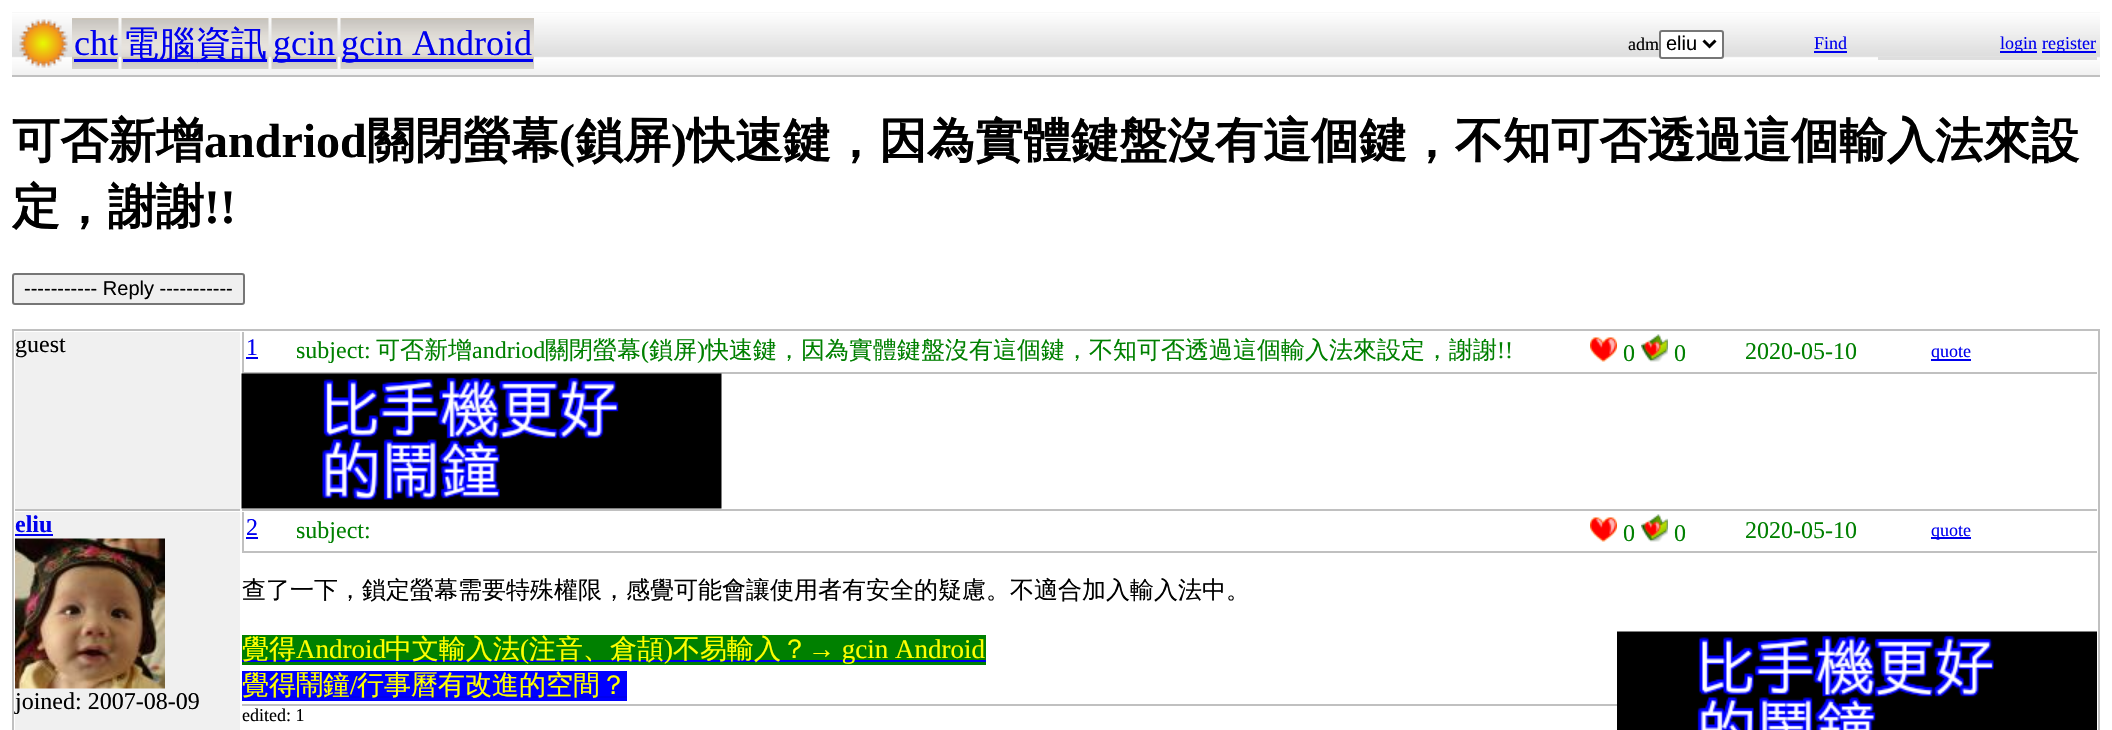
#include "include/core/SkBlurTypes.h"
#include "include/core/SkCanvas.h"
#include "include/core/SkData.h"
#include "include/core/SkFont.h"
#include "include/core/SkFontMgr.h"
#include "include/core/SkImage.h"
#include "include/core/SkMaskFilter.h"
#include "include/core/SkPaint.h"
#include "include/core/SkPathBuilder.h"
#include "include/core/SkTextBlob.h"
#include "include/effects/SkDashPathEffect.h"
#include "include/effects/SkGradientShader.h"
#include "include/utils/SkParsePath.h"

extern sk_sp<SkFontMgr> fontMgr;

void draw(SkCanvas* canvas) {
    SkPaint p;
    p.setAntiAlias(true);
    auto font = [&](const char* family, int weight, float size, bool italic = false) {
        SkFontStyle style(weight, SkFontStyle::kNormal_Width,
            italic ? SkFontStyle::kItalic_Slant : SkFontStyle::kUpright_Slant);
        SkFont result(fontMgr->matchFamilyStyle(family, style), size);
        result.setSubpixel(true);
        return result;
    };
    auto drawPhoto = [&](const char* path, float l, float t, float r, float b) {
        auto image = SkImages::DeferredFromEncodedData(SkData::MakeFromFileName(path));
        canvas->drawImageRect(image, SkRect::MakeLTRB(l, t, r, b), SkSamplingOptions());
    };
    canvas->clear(0xFFFFFFFF);
    drawPhoto("media/1.png", 12, 12, 2100, 75);
    p.setColor(0xFFC0C0C0);
    canvas->drawRect(SkRect::MakeLTRB(12, 75, 2100, 77), p);
    drawPhoto("media/2.png", 19, 19, 68, 68);
    drawPhoto("media/3.png", 72, 18, 119, 69);
    auto font1 = font("Liberation Serif", 400, 36);
    p.setColor(0xFF0000EE);
    canvas->drawString("cht", 74, 55, font1, p);
    canvas->drawRect(SkRect::MakeLTRB(74, 59, 117, 62), p);
    drawPhoto("media/4.png", 121, 18, 269, 69);
    canvas->drawRect(SkRect::MakeLTRB(123, 59, 267, 62), p);
    auto font2 = font("WenQuanYi Zen Hei", 500, 36);
    canvas->drawString("電腦資訊", 123, 56, font2, p);
    drawPhoto("media/5.png", 271, 18, 338, 69);
    canvas->drawRect(SkRect::MakeLTRB(273, 59, 336, 62), p);
    canvas->drawString("gcin", 273, 55, font1, p);
    drawPhoto("media/6.png", 340, 18, 534, 69);
    canvas->drawRect(SkRect::MakeLTRB(342, 59, 533, 62), p);
    canvas->drawString("gcin Android", 341, 55, font1, p);
    auto font3 = font("Liberation Serif", 400, 18);
    p.setColor(0xFF000000);
    canvas->drawString("adm", 1628, 50, font3, p);
    p.setColor(0xFFFFFFFF);
    canvas->drawRoundRect(SkRect::MakeLTRB(1660, 31, 1723, 58), 2, 2, p);
    p.setStyle(SkPaint::kStroke_Style);
    p.setStrokeWidth(2);
    p.setColor(0xFF767676);
    canvas->drawRoundRect(SkRect::MakeLTRB(1660, 31, 1723, 58), 2, 2, p);
    p.setStrokeWidth(3);
    p.setColor(0xFF000000);
    canvas->drawPath(SkPathBuilder().moveTo(1703.5f, 40.5f).lineTo(1709.5f, 46.5f).lineTo(1715.5f, 40.5f).detach(), p);
    auto font4 = font("Liberation Sans", 400, 20);
    p.setStyle(SkPaint::kFill_Style);
    canvas->drawString("eliu", 1666, 50, font4, p);
    p.setColor(0xFF0000EE);
    canvas->drawString("Find", 1814, 49, font3, p);
    {
        const struct { float l, t, r, b; SkColor color; } items[] = {
            {1814, 51, 1847, 53, 0xFF0000EE},
            {1878, 57, 2097, 60, 0xFFDEDEDE},
            {2000, 51, 2037, 53, 0xFF0000EE},
        };
        for (auto [l, t, r, b, color] : items) {
            p.setColor(color);
            canvas->drawRect(SkRect::MakeLTRB(l, t, r, b), p);
        }
    }
    canvas->drawString("login", 2000, 49, font3, p);
    canvas->drawRect(SkRect::MakeLTRB(2042, 51, 2096, 53), p);
    canvas->drawString("register", 2042, 49, font3, p);
    auto font5 = font("WenQuanYi Zen Hei", 700, 48);
    p.setColor(0xFF000000);
    canvas->drawString("可否新增", 12, 157, font5, p);
    auto font6 = font("Liberation Serif", 700, 48);
    canvas->drawString("andriod", 204, 157, font6, p);
    canvas->drawString("關閉螢幕", 367, 157, font5, p);
    canvas->drawString("(", 559, 157, font6, p);
    canvas->drawString("鎖屏", 575, 157, font5, p);
    canvas->drawString(")", 671, 157, font6, p);
    canvas->drawString("快速鍵，因為實體鍵盤沒有這個鍵，不知可否透過這個輸入法來設", 687, 157, font5, p);
    canvas->drawString("定，謝謝", 12, 223, font5, p);
    canvas->drawString("!!", 204, 223, font6, p);
    p.setColor(0xFFEFEFEF);
    canvas->drawRoundRect(SkRect::MakeLTRB(13, 274, 244, 304), 2, 2, p);
    p.setStyle(SkPaint::kStroke_Style);
    p.setStrokeWidth(2);
    p.setColor(0xFF767676);
    canvas->drawRoundRect(SkRect::MakeLTRB(13, 274, 244, 304), 2, 2, p);
    p.setStyle(SkPaint::kFill_Style);
    p.setColor(0xFF000000);
    canvas->drawString("----------- Reply -----------", 24, 295, font4, p);
    p.setStyle(SkPaint::kStroke_Style);
    p.setColor(0xFFC0C0C0);
    canvas->drawRect(SkRect::MakeLTRB(13, 330, 2099, 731), p);
    p.setStyle(SkPaint::kFill_Style);
    p.setColor(0xFFF0F0F0);
    canvas->drawRect(SkRect::MakeLTRB(15, 332, 240, 509), p);
    p.setColor(0xFFC0C0C0);
    canvas->drawRect(SkRect::MakeLTRB(15, 509, 240, 511), p);
    auto font7 = font("Liberation Serif", 400, 24);
    p.setColor(0xFF000000);
    canvas->drawString("guest", 15, 352, font7, p);
    {
        const struct { float l, t, r, b; SkColor color; } items[] = {
            {242, 509, 2097, 511, 0xFFC0C0C0},
            {242, 372, 2097, 374, 0xFFC0C0C0},
            {242, 332, 244, 374, 0xFFC0C0C0},
        };
        for (auto [l, t, r, b, color] : items) {
            p.setColor(color);
            canvas->drawRect(SkRect::MakeLTRB(l, t, r, b), p);
        }
    }
    p.setColor(0xFF0000EE);
    canvas->drawString("1", 246, 355, font7, p);
    canvas->drawRect(SkRect::MakeLTRB(246, 357, 258, 359), p);
    p.setColor(0xFF008000);
    canvas->drawString("subject:", 296, 358, font7, p);
    auto font8 = font("WenQuanYi Zen Hei", 500, 24);
    canvas->drawString("可否新增", 376, 358, font8, p);
    canvas->drawString("andriod", 472, 358, font7, p);
    canvas->drawString("關閉螢幕", 545, 358, font8, p);
    canvas->drawString("(", 641, 358, font7, p);
    canvas->drawString("鎖屏", 649, 358, font8, p);
    canvas->drawString(")", 697, 358, font7, p);
    canvas->drawString("快速鍵，因為實體鍵盤沒有這個鍵，不知可否透過這個輸入法來設定，謝謝", 705, 358, font8, p);
    canvas->drawString("!!", 1497, 358, font7, p);
    drawPhoto("media/7.png", 1590, 337, 1617, 362);
    canvas->drawString("0", 1623, 361, font7, p);
    drawPhoto("media/8.png", 1641, 334, 1668, 362);
    canvas->drawString("0", 1674, 361, font7, p);
    canvas->drawString("2020-05-10", 1745, 359, font7, p);
    p.setColor(0xFF0000EE);
    canvas->drawRect(SkRect::MakeLTRB(1931, 359, 1971, 361), p);
    canvas->drawString("quote", 1931, 357, font3, p);
    drawPhoto("media/9.png", 241, 373, 722, 509);
    p.setColor(0xFFF0F0F0);
    canvas->drawRect(SkRect::MakeLTRB(15, 512, 240, 730), p);
    auto font9 = font("Liberation Serif", 700, 24);
    p.setColor(0xFF0000EE);
    canvas->drawString("eliu", 15, 532, font9, p);
    canvas->drawRect(SkRect::MakeLTRB(15, 534, 53, 536), p);
    drawPhoto("media/10.png", 15, 538, 165, 689);
    p.setColor(0xFF000000);
    canvas->drawString("joined: 2007-08-09", 15, 709, font7, p);
    p.setColor(0xFFC0C0C0);
    canvas->drawRect(SkRect::MakeLTRB(242, 551, 2097, 553), p);
    canvas->drawRect(SkRect::MakeLTRB(242, 512, 244, 552), p);
    p.setColor(0xFF0000EE);
    canvas->drawString("2", 246, 535, font7, p);
    canvas->drawRect(SkRect::MakeLTRB(246, 537, 258, 539), p);
    p.setColor(0xFF008000);
    canvas->drawString("subject:", 296, 538, font7, p);
    drawPhoto("media/7.png", 1590, 517, 1617, 542);
    canvas->drawString("0", 1623, 541, font7, p);
    drawPhoto("media/8.png", 1641, 514, 1668, 542);
    canvas->drawString("0", 1674, 541, font7, p);
    canvas->drawString("2020-05-10", 1745, 538, font7, p);
    p.setColor(0xFF0000EE);
    canvas->drawRect(SkRect::MakeLTRB(1931, 537, 1971, 539), p);
    canvas->drawString("quote", 1931, 536, font3, p);
    p.setColor(0xFF000000);
    canvas->drawString("查了一下，鎖定螢幕需要特殊權限，感覺可能會讓使用者有安全的疑慮。不適合加入輸入法中。", 242, 598, font8, p);
    p.setColor(0xFF008000);
    canvas->drawRect(SkRect::MakeLTRB(242, 635, 986, 665), p);
    p.setColor(0xFF0000EE);
    canvas->drawRect(SkRect::MakeLTRB(242, 660, 986, 662), p);
    auto font10 = font("WenQuanYi Zen Hei", 500, 27);
    p.setColor(0xFFFFFF00);
    canvas->drawString("覺得", 242, 658, font10, p);
    auto font11 = font("Liberation Serif", 400, 27);
    canvas->drawString("Android", 296, 658, font11, p);
    canvas->drawString("中文輸入法", 385, 658, font10, p);
    canvas->drawString("(", 520, 658, font11, p);
    canvas->drawString("注音、倉頡", 529, 658, font10, p);
    canvas->drawString(")", 664, 658, font11, p);
    canvas->drawString("不易輸入？", 673, 658, font10, p);
    canvas->drawString("→ gcin Android", 808, 658, font11, p);
    drawPhoto("media/11.png", 1617, 631, 2097, 730);
    p.setColor(0xFF0000FF);
    canvas->drawRect(SkRect::MakeLTRB(242, 671, 627, 701), p);
    p.setColor(0xFF0000EE);
    canvas->drawRect(SkRect::MakeLTRB(242, 696, 627, 698), p);
    p.setColor(0xFFFFFF00);
    canvas->drawString("覺得鬧鐘", 242, 694, font10, p);
    canvas->drawString("/", 350, 694, font11, p);
    canvas->drawString("行事曆有改進的空間？", 357, 694, font10, p);
    p.setColor(0xFFC0C0C0);
    canvas->drawRect(SkRect::MakeLTRB(242, 704, 1617, 706), p);
    p.setColor(0xFF000000);
    canvas->drawString("edited: 1", 242, 721, font3, p);
}
